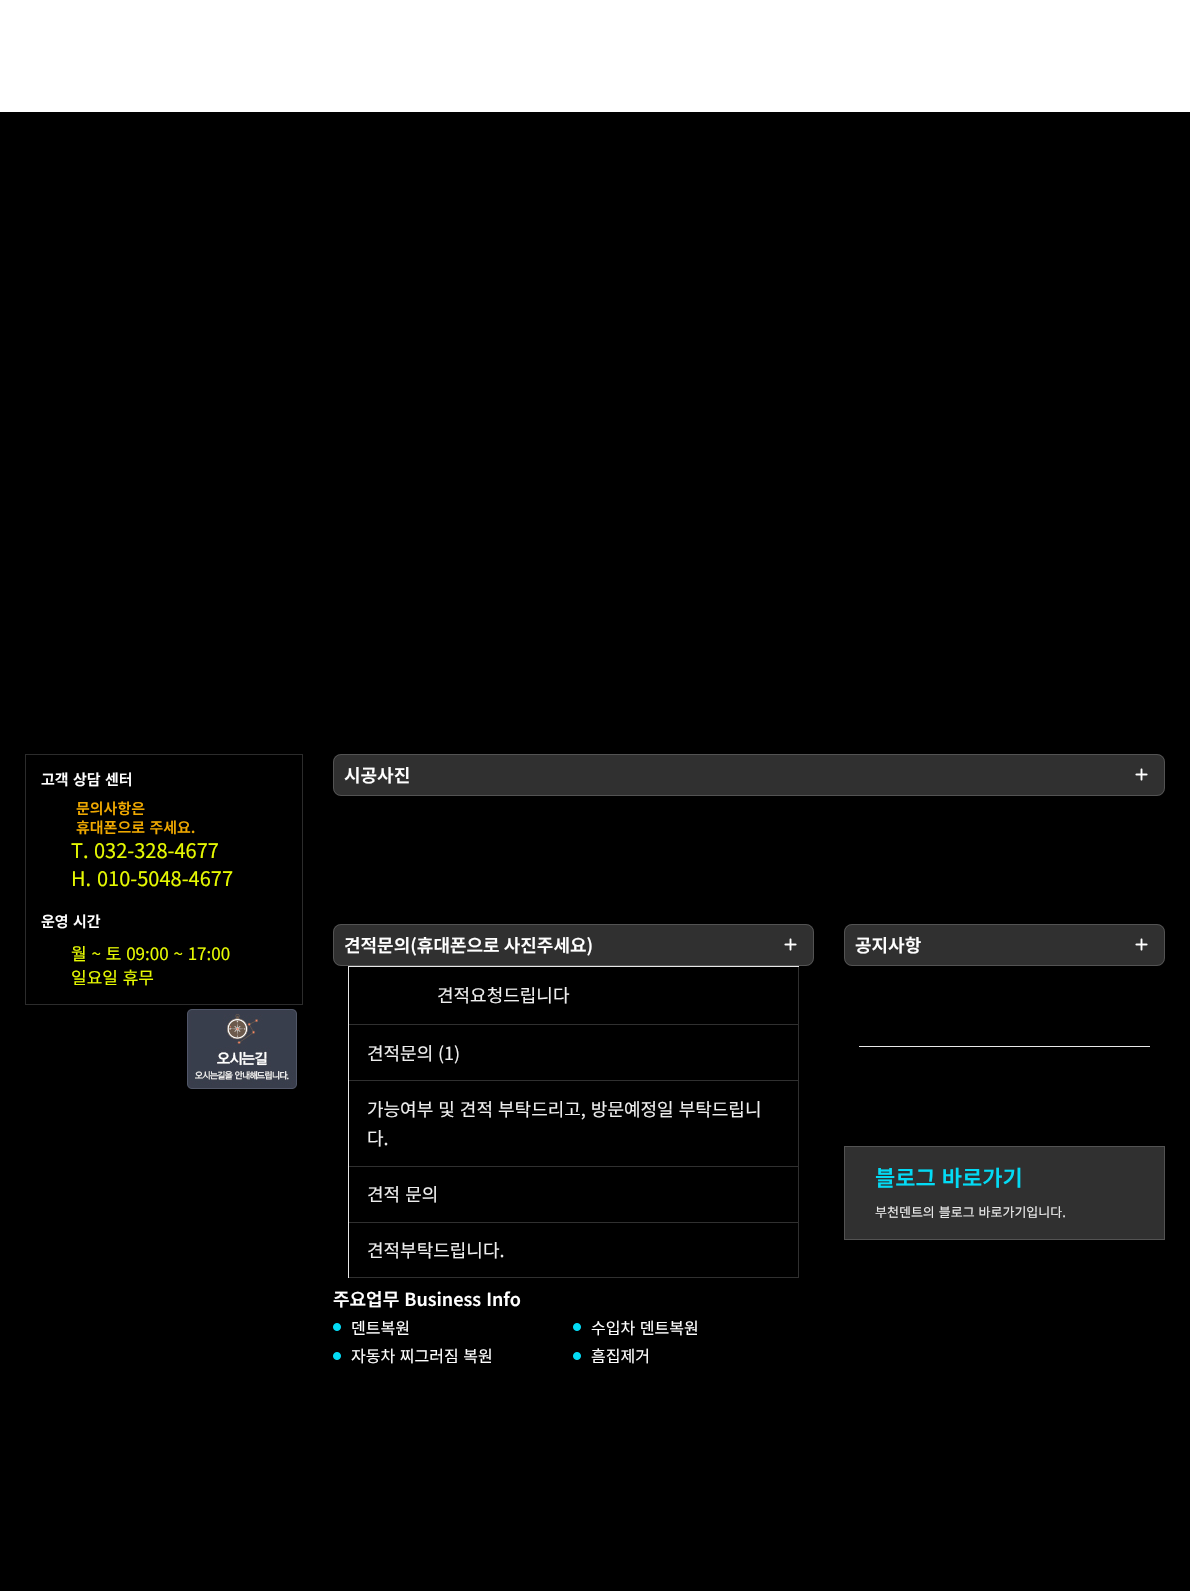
#include "include/core/SkBlurTypes.h"
#include "include/core/SkCanvas.h"
#include "include/core/SkData.h"
#include "include/core/SkFont.h"
#include "include/core/SkFontMgr.h"
#include "include/core/SkImage.h"
#include "include/core/SkMaskFilter.h"
#include "include/core/SkPaint.h"
#include "include/core/SkPathBuilder.h"
#include "include/core/SkTextBlob.h"
#include "include/effects/SkDashPathEffect.h"
#include "include/effects/SkGradientShader.h"
#include "include/utils/SkParsePath.h"

extern sk_sp<SkFontMgr> fontMgr;

void draw(SkCanvas* canvas) {
    SkPaint p;
    p.setAntiAlias(true);
    auto font = [&](const char* family, int weight, float size, bool italic = false) {
        SkFontStyle style(weight, SkFontStyle::kNormal_Width,
            italic ? SkFontStyle::kItalic_Slant : SkFontStyle::kUpright_Slant);
        SkFont result(fontMgr->matchFamilyStyle(family, style), size);
        result.setSubpixel(true);
        return result;
    };
    auto drawTracked = [&](const char* s, float x, float y, const SkFont& font, const SkPaint& ink, float letter, float word) {
        std::vector<SkGlyphID> glyphs(font.countText(s, strlen(s), SkTextEncoding::kUTF8));
        std::vector<float> xs(glyphs.size());
        font.textToGlyphs(s, strlen(s), SkTextEncoding::kUTF8, glyphs);
        font.getXPos(glyphs, xs, x);
        float extra = 0;
        for (size_t i = 0; i < glyphs.size(); i++) {
            xs[i] += extra;
            extra += letter + word * (glyphs[i] == font.unicharToGlyph(' '));
        }
        canvas->drawTextBlob(SkTextBlob::MakeFromPosHGlyphs(glyphs, xs, y, font), 0, 0, ink);
    };
    auto drawPhoto = [&](const char* path, float l, float t, float r, float b) {
        auto image = SkImages::DeferredFromEncodedData(SkData::MakeFromFileName(path));
        canvas->drawImageRect(image, SkRect::MakeLTRB(l, t, r, b), SkSamplingOptions());
    };
    canvas->clear(0xFF000000);
    p.setColor(0xFFFFFFFF);
    canvas->drawRect(SkRect::MakeLTRB(0, 0, 1190, 112), p);
    p.setStyle(SkPaint::kStroke_Style);
    p.setStrokeWidth(1);
    p.setColor(0xFF2C2C2C);
    canvas->drawRect(SkRect::MakeLTRB(25.5f, 754.5f, 302.5f, 1004.5f), p);
    auto font1 = font("Noto Sans KR", 600, 15);
    p.setStyle(SkPaint::kFill_Style);
    p.setColor(0xFFFFFFFF);
    drawTracked("고객 상담 센터", 41, 785, font1, p, 0, 1);
    p.setColor(0xFFEFA800);
    canvas->drawString("문의사항은", 76, 814, font1, p);
    drawTracked("휴대폰으로 주세요.", 76, 833, font1, p, 0, 1);
    auto font2 = font("Noto Sans KR", 400, 20);
    p.setColor(0xFFE7FA02);
    {
        const struct { const char* s; float x, y; } items[] = {
            {"T.", 71, 858},
            {"032-328-4677", 94, 858},
            {"H.", 71, 886},
            {"010-5048-4677", 97, 886},
        };
        for (auto [s, x, y] : items) {
            canvas->drawString(s, x, y, font2, p);
        }
    }
    p.setColor(0xFFFFFFFF);
    drawTracked("운영 시간", 41, 927, font1, p, 0, 1);
    auto font3 = font("Noto Sans KR", 400, 17);
    p.setColor(0xFFE7FA02);
    drawTracked("월 ~ 토 09:00 ~ 17:00", 71, 960, font3, p, 0, 1);
    drawTracked("일요일 휴무", 71, 984, font3, p, 0, 1);
    drawPhoto("media/1.png", 187, 1009, 297, 1089);
    p.setColor(0xFF303030);
    canvas->drawRoundRect(SkRect::MakeLTRB(333, 754, 1165, 796), 8, 8, p);
    p.setStyle(SkPaint::kStroke_Style);
    p.setColor(0x30E8E8E8);
    canvas->drawRoundRect(SkRect::MakeLTRB(333.5f, 754.5f, 1164.5f, 795.5f), 7.5f, 7.5f, p);
    auto font4 = font("Noto Sans KR", 600, 18);
    p.setStyle(SkPaint::kFill_Style);
    p.setColor(0xFFFFFFFF);
    canvas->drawString("시공사진", 344, 782, font4, p);
    drawPhoto("media/2.png", 1135, 768, 1148, 781);
    p.setColor(0xFF303030);
    canvas->drawRoundRect(SkRect::MakeLTRB(333, 924, 814, 966), 8, 8, p);
    p.setStyle(SkPaint::kStroke_Style);
    p.setColor(0x30E8E8E8);
    canvas->drawRoundRect(SkRect::MakeLTRB(333.5f, 924.5f, 813.5f, 965.5f), 7.5f, 7.5f, p);
    p.setStyle(SkPaint::kFill_Style);
    p.setColor(0xFFFFFFFF);
    canvas->drawString("견적문의(휴대폰으로 사진주세요)", 344, 952, font4, p);
    drawPhoto("media/2.png", 784, 938, 797, 951);
    p.setColor(0xFFE8E8E8);
    canvas->drawRect(SkRect::MakeLTRB(348, 966, 799, 967), p);
    canvas->drawRect(SkRect::MakeLTRB(348, 966, 349, 1278), p);
    p.setColor(0xFF303030);
    canvas->drawPath(SkPathBuilder().moveTo(799, 967).lineTo(799, 1025).lineTo(798, 1024).lineTo(798, 967).close().detach(), p);
    p.setColor(0x33F1F1F1);
    canvas->drawPath(SkPathBuilder().moveTo(799, 1025).lineTo(349, 1025).lineTo(349, 1024).lineTo(798, 1024).close().detach(), p);
    auto font5 = font("Noto Sans KR", 400, 18);
    p.setColor(0xFFEEEEEE);
    canvas->drawString("견적요청드립니다", 437, 1002, font5, p);
    p.setColor(0xFF303030);
    canvas->drawPath(SkPathBuilder().moveTo(799, 1025).lineTo(799, 1081).lineTo(798, 1080).lineTo(798, 1025).close().detach(), p);
    p.setColor(0x33F1F1F1);
    canvas->drawPath(SkPathBuilder().moveTo(799, 1081).lineTo(349, 1081).lineTo(349, 1080).lineTo(798, 1080).close().detach(), p);
    p.setColor(0xFFEEEEEE);
    canvas->drawString("견적문의", 367, 1060, font5, p);
    canvas->drawString("(1)", 438, 1060, font5, p);
    p.setColor(0xFF303030);
    canvas->drawPath(SkPathBuilder().moveTo(799, 1081).lineTo(799, 1167).lineTo(798, 1166).lineTo(798, 1081).close().detach(), p);
    p.setColor(0x33F1F1F1);
    canvas->drawPath(SkPathBuilder().moveTo(799, 1167).lineTo(349, 1167).lineTo(349, 1166).lineTo(798, 1166).close().detach(), p);
    p.setColor(0xFFEEEEEE);
    drawTracked("가능여부 및 견적 부탁드리고, 방문예정일 부탁드립니", 367, 1116, font5, p, 0, 1);
    canvas->drawString("다.", 367, 1145, font5, p);
    p.setColor(0xFF303030);
    canvas->drawPath(SkPathBuilder().moveTo(799, 1167).lineTo(799, 1223).lineTo(798, 1222).lineTo(798, 1167).close().detach(), p);
    p.setColor(0x33F1F1F1);
    canvas->drawPath(SkPathBuilder().moveTo(799, 1223).lineTo(349, 1223).lineTo(349, 1222).lineTo(798, 1222).close().detach(), p);
    p.setColor(0xFFEEEEEE);
    drawTracked("견적 문의", 367, 1201, font5, p, 0, 1);
    p.setColor(0xFF303030);
    canvas->drawPath(SkPathBuilder().moveTo(799, 1223).lineTo(799, 1278).lineTo(798, 1277).lineTo(798, 1223).close().detach(), p);
    p.setColor(0x33F1F1F1);
    canvas->drawPath(SkPathBuilder().moveTo(799, 1278).lineTo(349, 1278).lineTo(349, 1277).lineTo(798, 1277).close().detach(), p);
    p.setColor(0xFFEEEEEE);
    canvas->drawString("견적부탁드립니다.", 367, 1257, font5, p);
    p.setColor(0xFFFFFFFF);
    drawTracked("주요업무 Business Info", 333, 1306, font4, p, 0, 1);
    drawPhoto("media/3.png", 333, 1323, 341, 1331);
    auto font6 = font("Noto Sans KR", 400, 16);
    canvas->drawString("덴트복원", 351, 1334, font6, p);
    drawPhoto("media/3.png", 333, 1352, 341, 1360);
    drawTracked("자동차 찌그러짐 복원", 351, 1362, font6, p, 0, 1);
    drawPhoto("media/3.png", 573, 1323, 581, 1331);
    drawTracked("수입차 덴트복원", 591, 1334, font6, p, 0, 1);
    drawPhoto("media/3.png", 573, 1352, 581, 1360);
    canvas->drawString("흠집제거", 591, 1362, font6, p);
    p.setColor(0xFF303030);
    canvas->drawRoundRect(SkRect::MakeLTRB(844, 924, 1165, 966), 8, 8, p);
    p.setStyle(SkPaint::kStroke_Style);
    p.setColor(0x30E8E8E8);
    canvas->drawRoundRect(SkRect::MakeLTRB(844.5f, 924.5f, 1164.5f, 965.5f), 7.5f, 7.5f, p);
    p.setStyle(SkPaint::kFill_Style);
    p.setColor(0xFFFFFFFF);
    canvas->drawString("공지사항", 855, 952, font4, p);
    drawPhoto("media/2.png", 1135, 938, 1148, 951);
    p.setColor(0xFFE8E8E8);
    canvas->drawRect(SkRect::MakeLTRB(859, 1046, 1150, 1047), p);
    p.setColor(0xFF303030);
    canvas->drawRect(SkRect::MakeLTRB(844.5f, 1146.5f, 1164.5f, 1239.5f), p);
    p.setStyle(SkPaint::kStroke_Style);
    p.setColor(0xFF535353);
    canvas->drawRect(SkRect::MakeLTRB(844.5f, 1146.5f, 1164.5f, 1239.5f), p);
    auto font7 = font("Noto Sans KR", 600, 22);
    p.setStyle(SkPaint::kFill_Style);
    p.setColor(0xFF03DBF5);
    drawTracked("블로그 바로가기", 875, 1186, font7, p, 0, 1);
    auto font8 = font("Noto Sans KR", 400, 13);
    p.setColor(0xFFE8E8E8);
    drawTracked("부천덴트의 블로그 바로가기입니다.", 875, 1217, font8, p, 0, 1);
}
